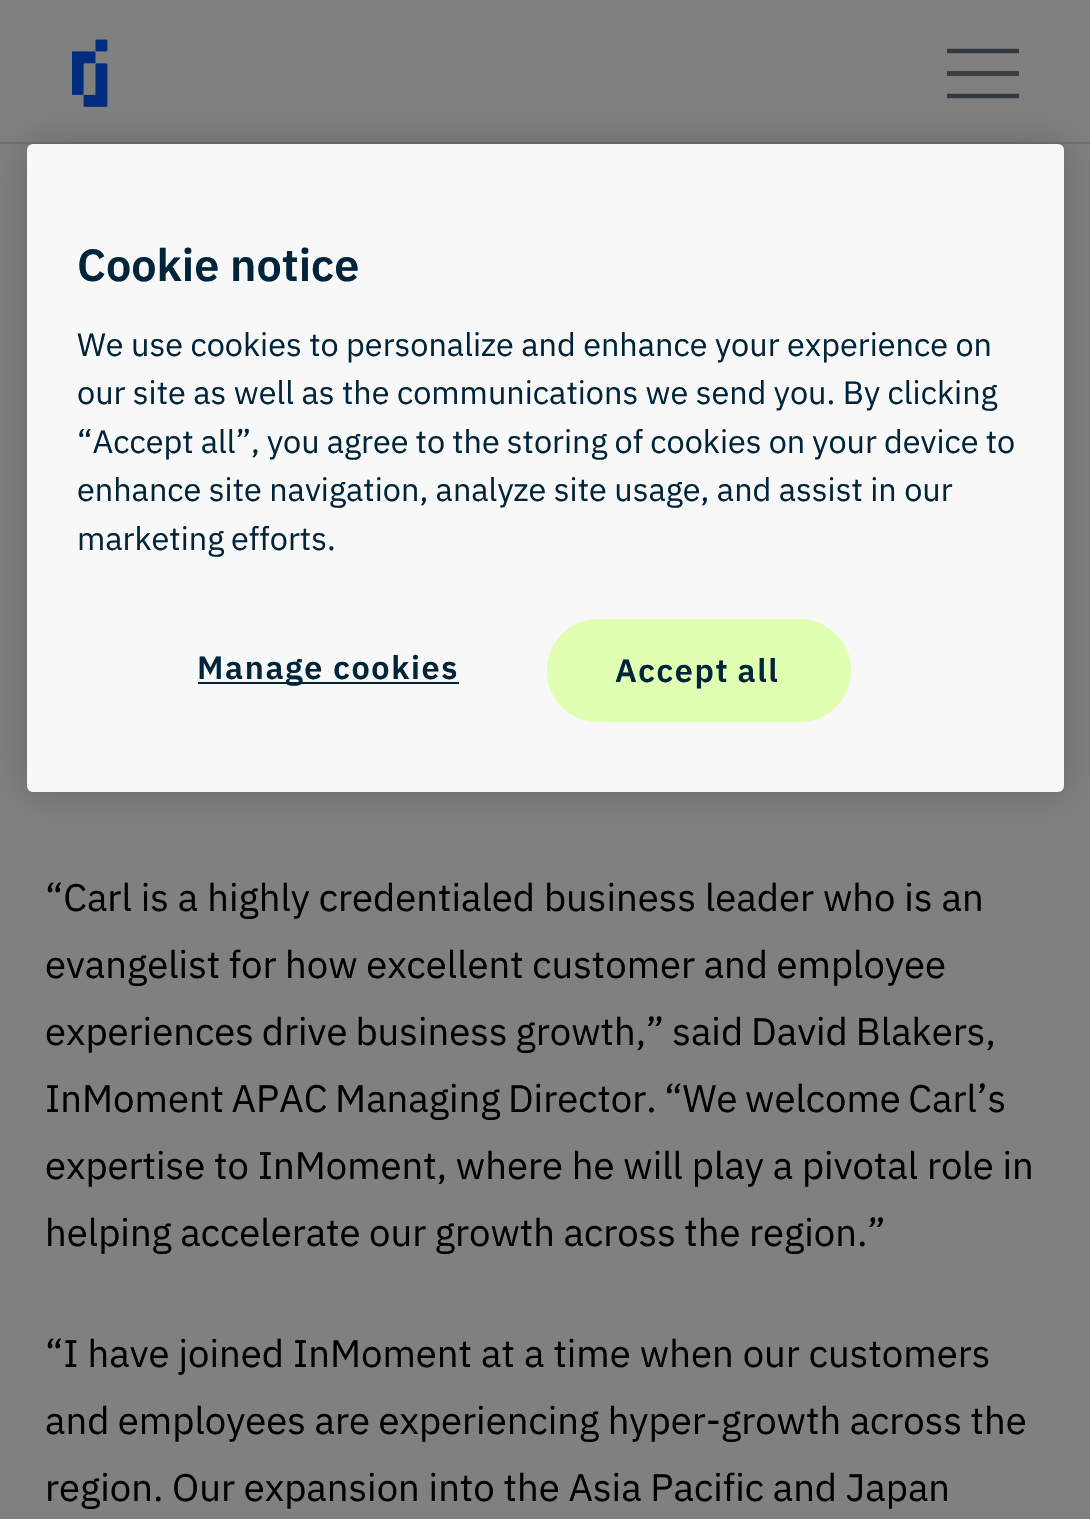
#include "include/core/SkBlurTypes.h"
#include "include/core/SkCanvas.h"
#include "include/core/SkData.h"
#include "include/core/SkFont.h"
#include "include/core/SkFontMgr.h"
#include "include/core/SkImage.h"
#include "include/core/SkMaskFilter.h"
#include "include/core/SkPaint.h"
#include "include/core/SkPathBuilder.h"
#include "include/core/SkTextBlob.h"
#include "include/effects/SkDashPathEffect.h"
#include "include/effects/SkGradientShader.h"
#include "include/utils/SkParsePath.h"

extern sk_sp<SkFontMgr> fontMgr;

void draw(SkCanvas* canvas) {
    SkPaint p;
    p.setAntiAlias(true);
    auto font = [&](const char* family, int weight, float size, bool italic = false) {
        SkFontStyle style(weight, SkFontStyle::kNormal_Width,
            italic ? SkFontStyle::kItalic_Slant : SkFontStyle::kUpright_Slant);
        SkFont result(fontMgr->matchFamilyStyle(family, style), size);
        result.setSubpixel(true);
        return result;
    };
    auto drawTracked = [&](const char* s, float x, float y, const SkFont& font, const SkPaint& ink, float letter, float word) {
        std::vector<SkGlyphID> glyphs(font.countText(s, strlen(s), SkTextEncoding::kUTF8));
        std::vector<float> xs(glyphs.size());
        font.textToGlyphs(s, strlen(s), SkTextEncoding::kUTF8, glyphs);
        font.getXPos(glyphs, xs, x);
        float extra = 0;
        for (size_t i = 0; i < glyphs.size(); i++) {
            xs[i] += extra;
            extra += letter + word * (glyphs[i] == font.unicharToGlyph(' '));
        }
        canvas->drawTextBlob(SkTextBlob::MakeFromPosHGlyphs(glyphs, xs, y, font), 0, 0, ink);
    };
    auto drawPhoto = [&](const char* path, float l, float t, float r, float b) {
        auto image = SkImages::DeferredFromEncodedData(SkData::MakeFromFileName(path));
        canvas->drawImageRect(image, SkRect::MakeLTRB(l, t, r, b), SkSamplingOptions());
    };
    canvas->clear(0xFF808080);
    drawPhoto("media/1.png", 72, 39, 108, 107);
    p.setStyle(SkPaint::kStroke_Style);
    p.setStrokeWidth(4.5f);
    p.setColor(0xFF32383D);
    canvas->drawPath(SkPathBuilder().moveTo(947, 51).lineTo(1019, 51).detach(), p);
    p.setStyle(SkPaint::kFill_Style);
    p.setColor(0xFF3A3F43);
    canvas->drawRect(SkRect::MakeLTRB(947, 71, 1019, 76), p);
    p.setStyle(SkPaint::kStroke_Style);
    p.setColor(0xFF32383D);
    canvas->drawPath(SkPathBuilder().moveTo(947, 96).lineTo(1019, 96).detach(), p);
    p.setStyle(SkPaint::kFill_Style);
    p.setColor(0xFF6B727E);
    canvas->drawRect(SkRect::MakeLTRB(0, 142, 1090, 144), p);
    p.setColor(0x33000000);
    p.setMaskFilter(SkMaskFilter::MakeBlur(kNormal_SkBlurStyle, 20));
    canvas->drawRoundRect(SkRect::MakeLTRB(27, 144, 1064, 792), 6, 6, p);
    p.setMaskFilter(nullptr);
    p.setColor(0xFFF8F8F8);
    canvas->drawRoundRect(SkRect::MakeLTRB(27, 144, 1064, 792), 6, 6, p);
    auto font1 = font("IBM Plex Sans", 600, 45);
    p.setColor(0xFF00253B);
    canvas->drawString("Cookie notice", 77, 281, font1, p);
    auto font2 = font("IBM Plex Sans", 400, 32.4f);
    drawTracked("We use cookies to personalize and enhance your experience on", 77, 356, font2, p, 0, -0.25f);
    drawTracked("our site as well as the communications we send you. By clicking", 77, 404, font2, p, 0, -0.25f);
    drawTracked("“Accept all”, you agree to the storing of cookies on your device to", 77, 453, font2, p, 0, -0.6f);
    drawTracked("enhance site navigation, analyze site usage, and assist in our", 77, 501, font2, p, 0, -0.25f);
    drawTracked("marketing efforts.", 77, 550, font2, p, 0, -1);
    canvas->drawRect(SkRect::MakeLTRB(198, 682, 459, 684), p);
    auto font3 = font("IBM Plex Sans", 600, 32.4f);
    drawTracked("Manage cookies", 197, 679, font3, p, 1.6f, 0);
    p.setColor(0xFFE1FFB3);
    canvas->drawRoundRect(SkRect::MakeLTRB(548, 620, 850, 721), 50.5f, 50.5f, p);
    p.setStyle(SkPaint::kStroke_Style);
    p.setStrokeWidth(2);
    canvas->drawRoundRect(SkRect::MakeLTRB(548, 620, 850, 721), 50.5f, 50.5f, p);
    p.setStyle(SkPaint::kFill_Style);
    p.setColor(0xFF00253B);
    drawTracked("Accept all", 615, 682, font3, p, 1.6f, -1);
    auto font4 = font("IBM Plex Sans", 400, 38.25f);
    p.setColor(0xFF000000);
    drawTracked("“Carl is a highly credentialed business leader who is an", 45, 911, font4, p, 0, -0.1f);
    drawTracked("evangelist for how excellent customer and employee", 45, 978, font4, p, 0, -0.5f);
    drawTracked("experiences drive business growth,” said David Blakers,", 45, 1045, font4, p, 0, -1);
    drawTracked("InMoment APAC Managing Director. “We welcome Carl’s", 45, 1112, font4, p, 0, -1.5f);
    drawTracked("expertise to InMoment, where he will play a pivotal role in", 45, 1179, font4, p, 0, -0.25f);
    drawTracked("helping accelerate our growth across the region.”", 45, 1246, font4, p, 0, -0.5f);
    canvas->drawString("“I have joined InMoment at a time when our customers", 45, 1367, font4, p);
    drawTracked("and employees are experiencing hyper-growth across the", 45, 1434, font4, p, 0, -0.5f);
    drawTracked("region. Our expansion into the Asia Pacific and Japan", 45, 1501, font4, p, 0, -0.25f);
}
